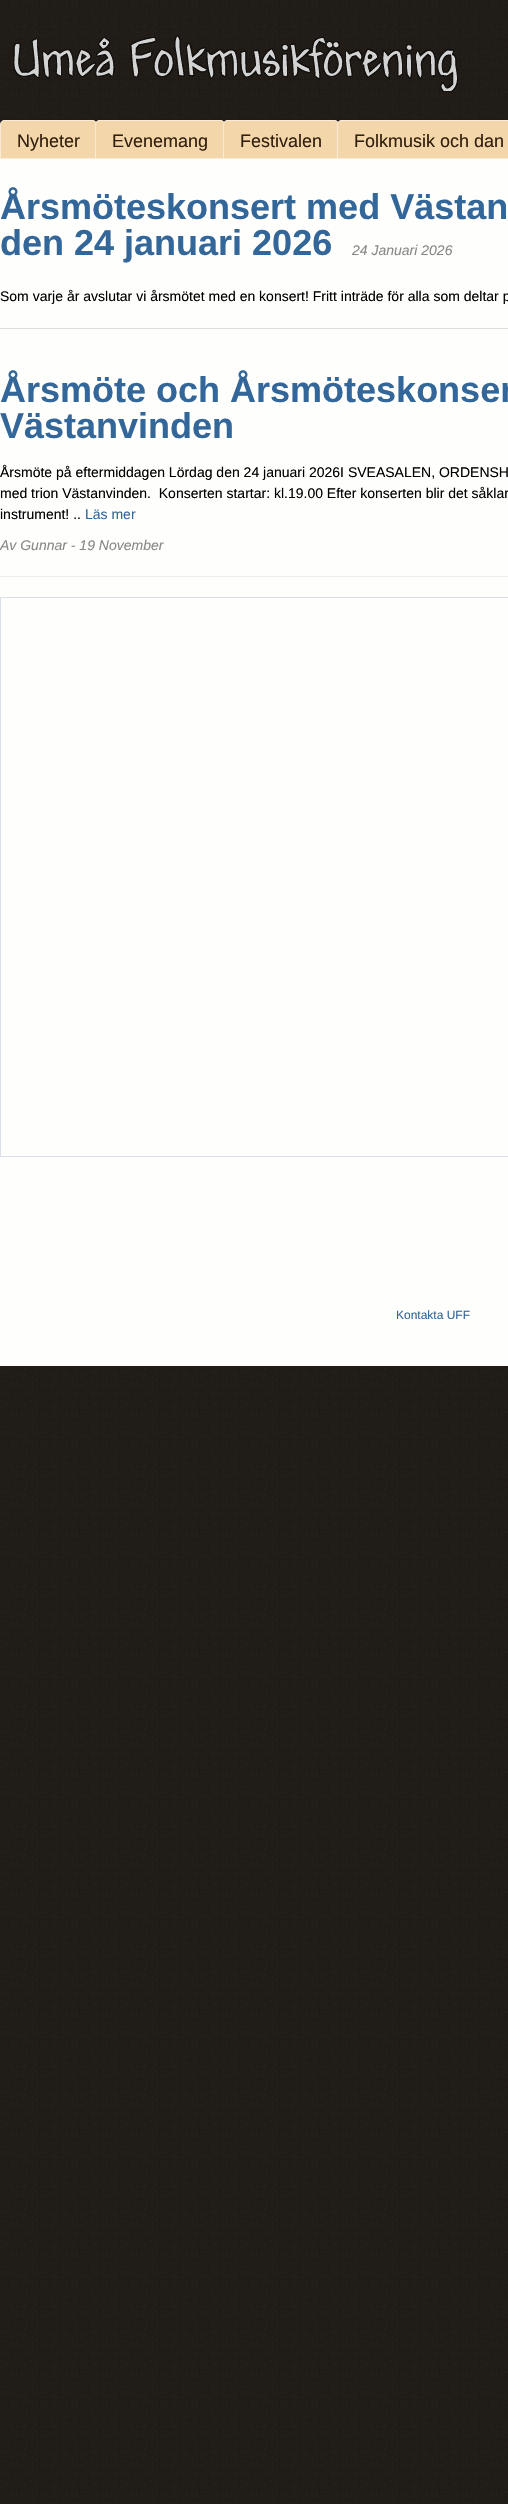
#include "include/core/SkBlurTypes.h"
#include "include/core/SkCanvas.h"
#include "include/core/SkData.h"
#include "include/core/SkFont.h"
#include "include/core/SkFontMgr.h"
#include "include/core/SkImage.h"
#include "include/core/SkMaskFilter.h"
#include "include/core/SkPaint.h"
#include "include/core/SkPathBuilder.h"
#include "include/core/SkTextBlob.h"
#include "include/effects/SkDashPathEffect.h"
#include "include/effects/SkGradientShader.h"
#include "include/utils/SkParsePath.h"

extern sk_sp<SkFontMgr> fontMgr;

void draw(SkCanvas* canvas) {
    SkPaint p;
    p.setAntiAlias(true);
    auto font = [&](const char* family, int weight, float size, bool italic = false) {
        SkFontStyle style(weight, SkFontStyle::kNormal_Width,
            italic ? SkFontStyle::kItalic_Slant : SkFontStyle::kUpright_Slant);
        SkFont result(fontMgr->matchFamilyStyle(family, style), size);
        result.setSubpixel(true);
        return result;
    };
    auto drawPhoto = [&](const char* path, float l, float t, float r, float b) {
        auto image = SkImages::DeferredFromEncodedData(SkData::MakeFromFileName(path));
        canvas->drawImageRect(image, SkRect::MakeLTRB(l, t, r, b), SkSamplingOptions());
    };
    canvas->clear(0xFFFFFFFF);
    drawPhoto("media/1.png", 0, 0, 508, 2504);
    drawPhoto("media/2.png", 13, 35, 458, 92);
    p.setColor(0xFFF3D6AA);
    canvas->drawPath(SkPathBuilder().moveTo(5, 120).lineTo(92, 120).cubicTo(95, 120, 97, 122, 97, 125).lineTo(97, 159).lineTo(0, 159).lineTo(0, 125).cubicTo(0, 122, 2, 120, 5, 120).close().detach(), p);
    p.setStyle(SkPaint::kStroke_Style);
    p.setStrokeWidth(1);
    p.setColor(0x80FFFFFF);
    canvas->drawPath(SkPathBuilder().moveTo(5, 120.5f).lineTo(92, 120.5f).cubicTo(94.5f, 120.5f, 96.5f, 122.5f, 96.5f, 125).lineTo(96.5f, 158.5f).lineTo(0.5f, 158.5f).lineTo(0.5f, 125).cubicTo(0.5f, 122.5f, 2.5f, 120.5f, 5, 120.5f).close().detach(), p);
    auto font1 = font("Liberation Sans", 400, 18);
    p.setStyle(SkPaint::kFill_Style);
    p.setColor(0xFF32200E);
    canvas->drawString("Nyheter", 17, 147, font1, p);
    p.setColor(0xFFF3D6AA);
    canvas->drawPath(SkPathBuilder().moveTo(100, 120).lineTo(220, 120).cubicTo(223, 120, 225, 122, 225, 125).lineTo(225, 159).lineTo(95, 159).lineTo(95, 125).cubicTo(95, 122, 97, 120, 100, 120).close().detach(), p);
    p.setStyle(SkPaint::kStroke_Style);
    p.setColor(0x80FFFFFF);
    canvas->drawPath(SkPathBuilder().moveTo(100, 120.5f).lineTo(220, 120.5f).cubicTo(222.5f, 120.5f, 224.5f, 122.5f, 224.5f, 125).lineTo(224.5f, 158.5f).lineTo(95.5f, 158.5f).lineTo(95.5f, 125).cubicTo(95.5f, 122.5f, 97.5f, 120.5f, 100, 120.5f).close().detach(), p);
    p.setStyle(SkPaint::kFill_Style);
    p.setColor(0xFF32200E);
    canvas->drawString("Evenemang", 112, 147, font1, p);
    p.setColor(0xFFF3D6AA);
    canvas->drawPath(SkPathBuilder().moveTo(228, 120).lineTo(334, 120).cubicTo(337, 120, 339, 122, 339, 125).lineTo(339, 159).lineTo(223, 159).lineTo(223, 125).cubicTo(223, 122, 225, 120, 228, 120).close().detach(), p);
    p.setStyle(SkPaint::kStroke_Style);
    p.setColor(0x80FFFFFF);
    canvas->drawPath(SkPathBuilder().moveTo(228, 120.5f).lineTo(334, 120.5f).cubicTo(336.5f, 120.5f, 338.5f, 122.5f, 338.5f, 125).lineTo(338.5f, 158.5f).lineTo(223.5f, 158.5f).lineTo(223.5f, 125).cubicTo(223.5f, 122.5f, 225.5f, 120.5f, 228, 120.5f).close().detach(), p);
    p.setStyle(SkPaint::kFill_Style);
    p.setColor(0xFF32200E);
    canvas->drawString("Festivalen", 240, 147, font1, p);
    p.setColor(0xFFF3D6AA);
    canvas->drawPath(SkPathBuilder().moveTo(342, 120).lineTo(508, 120).cubicTo(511, 120, 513, 122, 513, 125).lineTo(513, 159).lineTo(337, 159).lineTo(337, 125).cubicTo(337, 122, 339, 120, 342, 120).close().detach(), p);
    p.setStyle(SkPaint::kStroke_Style);
    p.setColor(0x80FFFFFF);
    canvas->drawPath(SkPathBuilder().moveTo(342, 120.5f).lineTo(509, 120.5f).cubicTo(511.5f, 120.5f, 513.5f, 122.5f, 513.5f, 125).lineTo(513.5f, 158.5f).lineTo(337.5f, 158.5f).lineTo(337.5f, 125).cubicTo(337.5f, 122.5f, 339.5f, 120.5f, 342, 120.5f).close().detach(), p);
    p.setStyle(SkPaint::kFill_Style);
    p.setColor(0xFF32200E);
    canvas->drawString("Folkmusik och dan", 354, 147, font1, p);
    p.setColor(0xFFFEFEFD);
    canvas->drawRect(SkRect::MakeLTRB(0, 159, 508, 1366), p);
    auto font2 = font("Liberation Sans", 700, 36);
    p.setColor(0xFF336699);
    canvas->drawString("Årsmöteskonsert med Västan", 0, 219, font2, p);
    canvas->drawString("den 24 januari 2026", 0, 255, font2, p);
    auto font3 = font("Liberation Sans", 400, 14, true);
    p.setColor(0xFF888888);
    canvas->drawString("24 Januari 2026", 352, 255, font3, p);
    auto font4 = font("Liberation Sans", 400, 14);
    p.setColor(0xFF000000);
    canvas->drawString("Som varje år avslutar vi årsmötet med en konsert! Fritt inträde för alla som deltar p", 0, 301, font4, p);
    p.setColor(0xFFDDDDDD);
    canvas->drawRect(SkRect::MakeLTRB(0, 328, 508, 329), p);
    p.setColor(0xFFEEEEEE);
    canvas->drawRect(SkRect::MakeLTRB(0, 576, 508, 577), p);
    p.setColor(0xFF336699);
    canvas->drawString("Årsmöte och Årsmöteskonser", 0, 402, font2, p);
    canvas->drawString("Västanvinden", 0, 438, font2, p);
    p.setColor(0xFF000000);
    {
        const struct { const char* s; float x, y; } items[] = {
            {"Årsmöte på eftermiddagen Lördag den 24 januari 2026I SVEASALEN, ORDENSH", 0, 477},
            {"med trion Västanvinden.  Konserten startar: kl.19.00 Efter konserten blir det såklar", 0, 498},
            {"instrument! ..", 0, 519},
        };
        for (auto [s, x, y] : items) {
            canvas->drawString(s, x, y, font4, p);
        }
    }
    p.setColor(0xFF336699);
    canvas->drawString("Läs mer", 85, 519, font4, p);
    p.setColor(0xFF888888);
    canvas->drawString("Av Gunnar - 19 November", 0, 550, font3, p);
    p.setStyle(SkPaint::kStroke_Style);
    p.setColor(0xFFD8DFEA);
    canvas->drawRect(SkRect::MakeLTRB(0.5f, 597.5f, 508.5f, 1156.5f), p);
    auto font5 = font("Liberation Sans", 400, 12);
    p.setStyle(SkPaint::kFill_Style);
    p.setColor(0xFF336699);
    canvas->drawString("Kontakta UFF", 396, 1319, font5, p);
}
